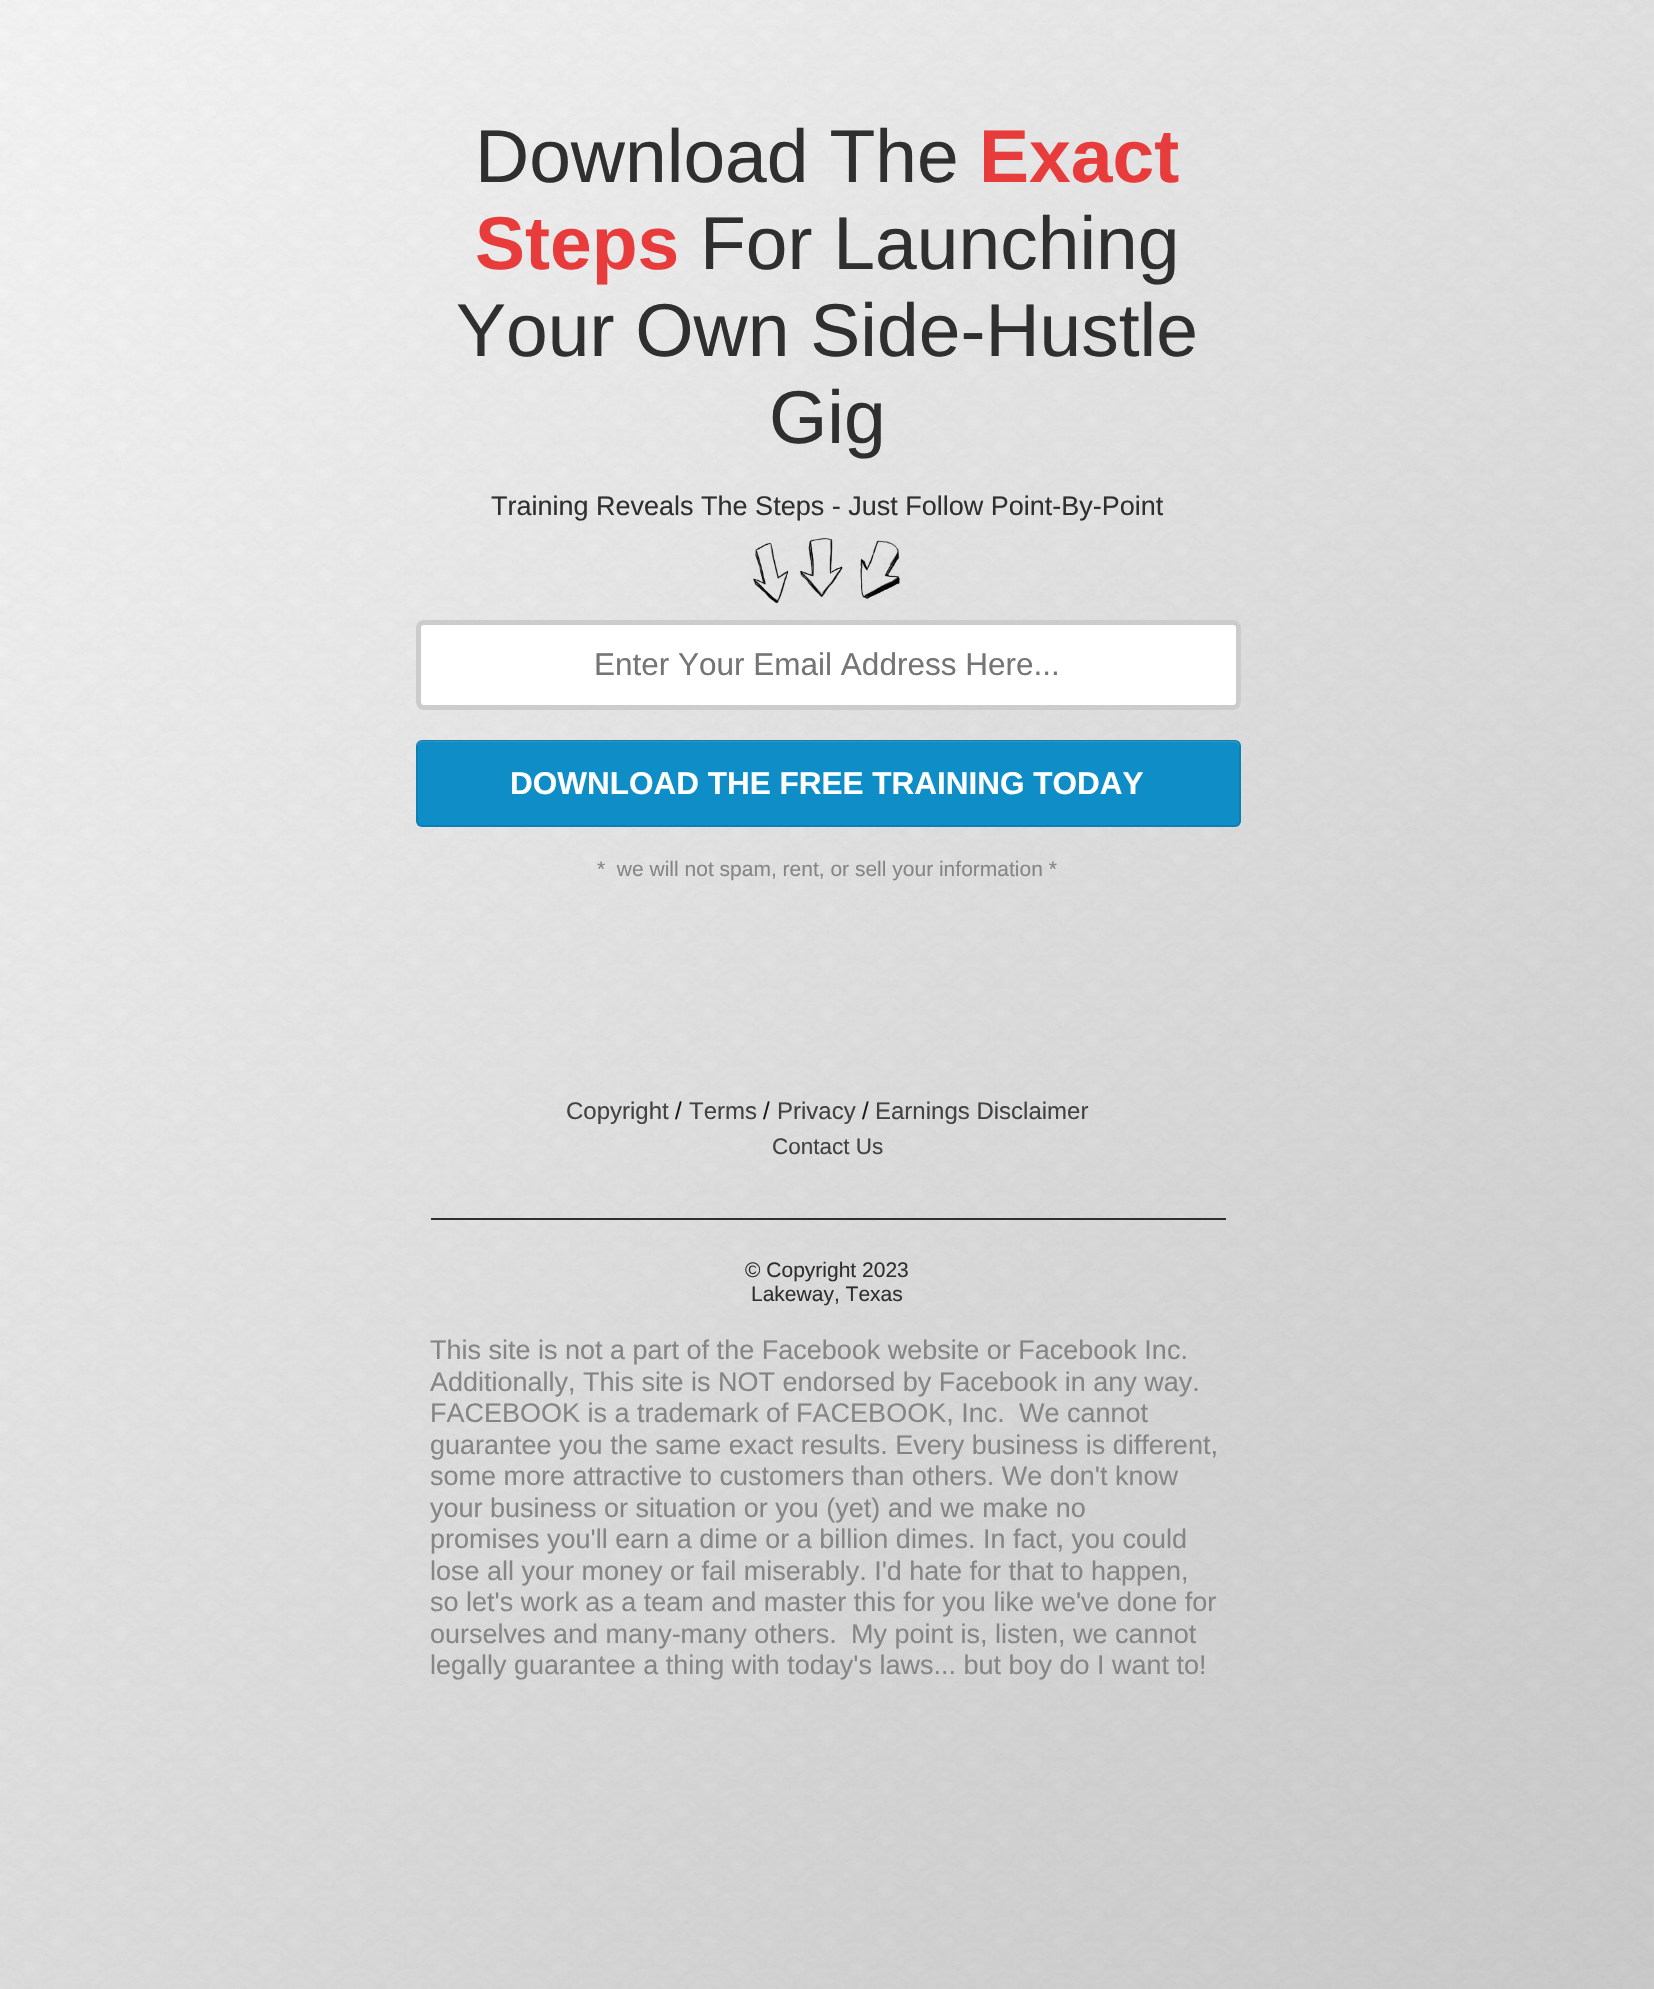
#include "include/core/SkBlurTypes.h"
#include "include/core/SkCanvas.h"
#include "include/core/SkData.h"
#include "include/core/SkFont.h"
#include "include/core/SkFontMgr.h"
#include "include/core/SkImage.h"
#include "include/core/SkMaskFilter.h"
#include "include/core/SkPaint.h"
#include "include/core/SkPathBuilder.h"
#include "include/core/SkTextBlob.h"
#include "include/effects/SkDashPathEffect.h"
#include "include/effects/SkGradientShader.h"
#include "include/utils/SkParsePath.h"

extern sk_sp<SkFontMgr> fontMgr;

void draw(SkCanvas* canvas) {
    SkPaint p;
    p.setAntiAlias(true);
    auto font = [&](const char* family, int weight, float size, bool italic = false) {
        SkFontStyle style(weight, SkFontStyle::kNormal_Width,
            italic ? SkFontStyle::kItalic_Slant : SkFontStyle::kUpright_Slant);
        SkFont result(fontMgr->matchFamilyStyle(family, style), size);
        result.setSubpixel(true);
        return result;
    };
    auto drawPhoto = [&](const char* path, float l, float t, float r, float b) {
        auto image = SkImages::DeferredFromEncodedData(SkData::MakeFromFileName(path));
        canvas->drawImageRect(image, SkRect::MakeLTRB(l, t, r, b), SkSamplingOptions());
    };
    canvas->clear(0xFFFFFFFF);
    drawPhoto("media/1.png", 0, 0, 1654, 1989);
    auto font1 = font("Liberation Sans", 400, 75);
    p.setColor(0xFF2F2F2F);
    canvas->drawString("Download The", 475, 182, font1, p);
    auto font2 = font("Liberation Sans", 700, 75);
    p.setColor(0xFFE83C3C);
    canvas->drawString("Exact", 979, 182, font2, p);
    canvas->drawString("Steps", 475, 269, font2, p);
    p.setColor(0xFF2F2F2F);
    {
        const struct { const char* s; float x, y; } items[] = {
            {"For Launching", 700, 269},
            {"Your Own Side-Hustle", 456, 356},
            {"Gig", 769, 443},
        };
        for (auto [s, x, y] : items) {
            canvas->drawString(s, x, y, font1, p);
        }
    }
    auto font3 = font("Liberation Sans", 400, 27);
    canvas->drawString("Training Reveals The Steps - Just Follow Point-By-Point", 491, 515, font3, p);
    drawPhoto("media/2.png", 753, 538, 900, 604);
    p.setColor(0xFFFFFFFF);
    canvas->drawRoundRect(SkRect::MakeLTRB(416, 620, 1241, 710), 8, 8, p);
    p.setStyle(SkPaint::kStroke_Style);
    p.setStrokeWidth(5);
    p.setColor(0x33000000);
    canvas->drawRoundRect(SkRect::MakeLTRB(418.5f, 622.5f, 1238.5f, 707.5f), 5.5f, 5.5f, p);
    auto font4 = font("Liberation Sans", 400, 31.5f);
    p.setStyle(SkPaint::kFill_Style);
    p.setColor(0xFF757575);
    canvas->drawString("Enter Your Email Address Here...", 594, 675, font4, p);
    p.setColor(0xFF0E8DC7);
    canvas->drawRoundRect(SkRect::MakeLTRB(416, 740, 1241, 827), 6, 6, p);
    p.setColor(0xFF3EA4D2);
    canvas->drawPath(SkPathBuilder().moveTo(422, 742).lineTo(1234, 742).cubicTo(1237, 742, 1239, 745, 1239, 747).lineTo(1239, 746).cubicTo(1239, 743, 1237, 741, 1234, 741).lineTo(422, 741).cubicTo(419, 741, 417, 743, 417, 746).lineTo(417, 747).cubicTo(417, 745, 419, 742, 422, 742).close().detach(), p);
    p.setStyle(SkPaint::kStroke_Style);
    p.setStrokeWidth(2);
    p.setColor(0x1A000000);
    canvas->drawRoundRect(SkRect::MakeLTRB(417, 741, 1240, 826), 5, 5, p);
    auto font5 = font("Liberation Sans", 700, 31.5f);
    p.setStyle(SkPaint::kFill_Style);
    p.setColor(0xFFFFFFFF);
    canvas->drawString("DOWNLOAD THE FREE TRAINING TODAY", 510, 794, font5, p);
    auto font6 = font("Liberation Sans", 400, 21);
    p.setColor(0xFF858585);
    canvas->drawString("*  we will not spam, rent, or sell your information *", 597, 876, font6, p);
    auto font7 = font("Liberation Sans", 400, 24);
    p.setColor(0xFF424242);
    canvas->drawString("Copyright", 566, 1119, font7, p);
    p.setColor(0xFF191919);
    canvas->drawString("/", 675, 1119, font7, p);
    p.setColor(0xFF424242);
    canvas->drawString("Terms", 689, 1119, font7, p);
    p.setColor(0xFF191919);
    canvas->drawString("/", 763, 1119, font7, p);
    p.setColor(0xFF424242);
    canvas->drawString("Privacy", 777, 1119, font7, p);
    p.setColor(0xFF191919);
    canvas->drawString("/", 862, 1119, font7, p);
    p.setColor(0xFF424242);
    canvas->drawString("Earnings Disclaimer", 875, 1119, font7, p);
    auto font8 = font("Liberation Sans", 400, 22.5f);
    canvas->drawString("Contact Us", 772, 1154, font8, p);
    p.setColor(0xFF2F2F2F);
    canvas->drawRect(SkRect::MakeLTRB(431, 1218, 1226, 1220), p);
    canvas->drawString("© Copyright 2023", 745, 1277, font6, p);
    canvas->drawString("Lakeway, Texas", 751, 1301, font6, p);
    p.setColor(0xFF858585);
    {
        const struct { const char* s; float x, y; } items[] = {
            {"This site is not a part of the Facebook website or Facebook Inc.", 430, 1359},
            {"Additionally, This site is NOT endorsed by Facebook in any way.", 430, 1391},
            {"FACEBOOK is a trademark of FACEBOOK, Inc.", 430, 1422},
            {"We cannot", 1019, 1422},
            {"guarantee you the same exact results. Every business is different,", 430, 1454},
            {"some more attractive to customers than others. We don't know", 430, 1485},
            {"your business or situation or you (yet) and we make no", 430, 1517},
            {"promises you'll earn a dime or a billion dimes. In fact, you could", 430, 1548},
            {"lose all your money or fail miserably. I'd hate for that to happen,", 430, 1580},
            {"so let's work as a team and master this for you like we've done for", 430, 1611},
            {"ourselves and many-many others.", 430, 1643},
            {"My point is, listen, we cannot", 851, 1643},
            {"legally guarantee a thing with today's laws... but boy do I want to!", 430, 1674},
        };
        for (auto [s, x, y] : items) {
            canvas->drawString(s, x, y, font3, p);
        }
    }
}
